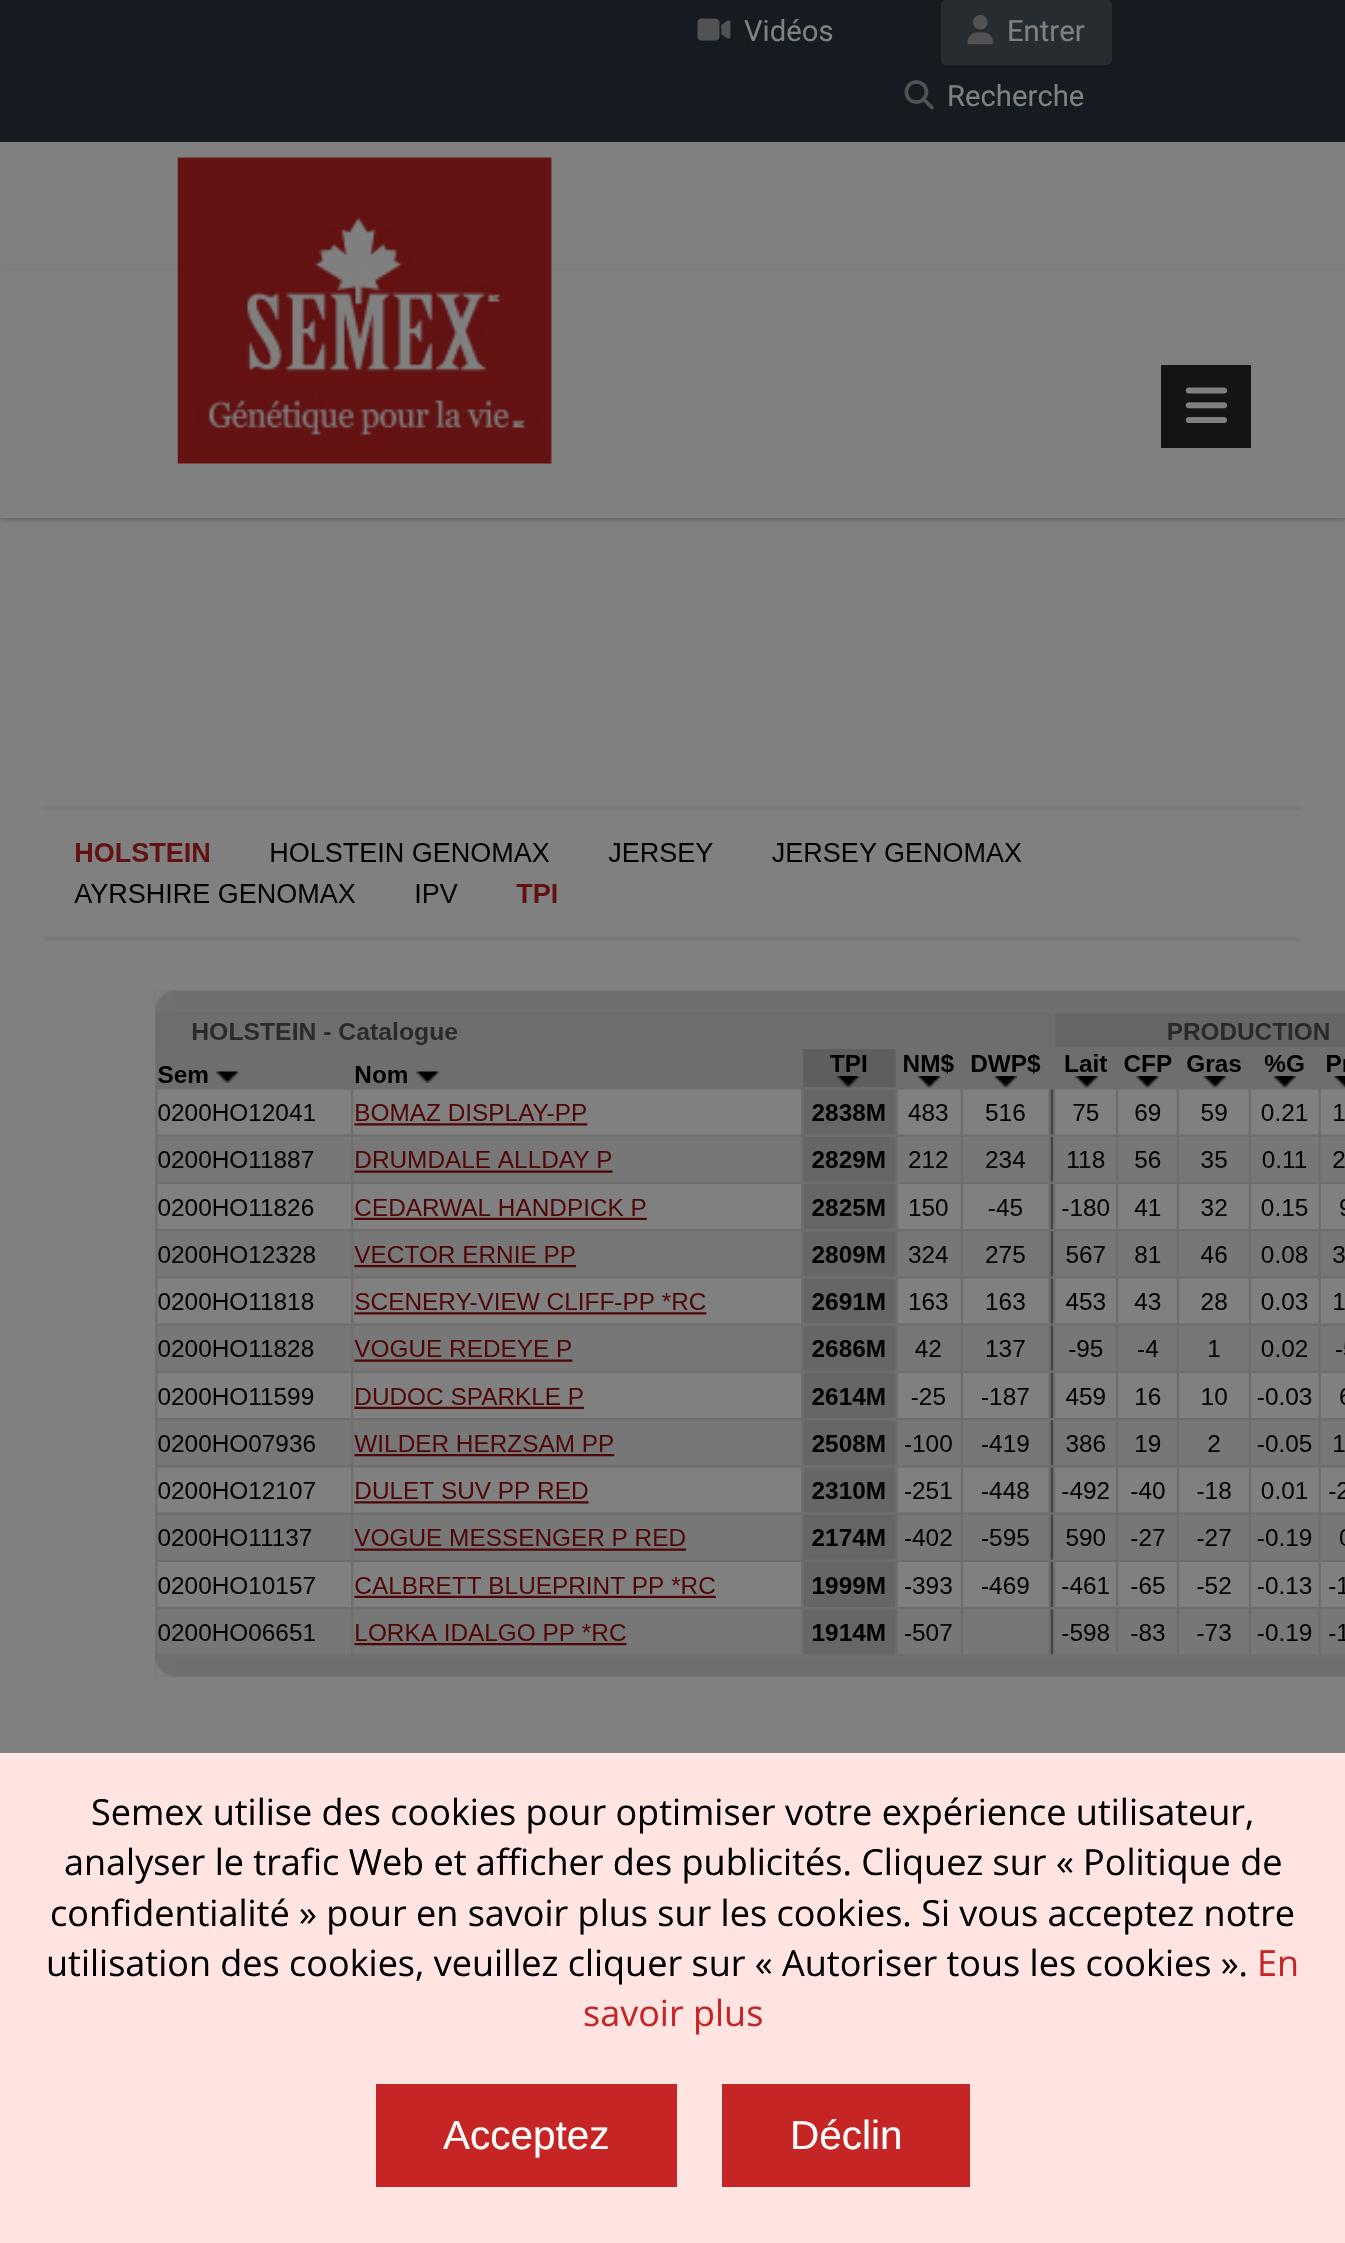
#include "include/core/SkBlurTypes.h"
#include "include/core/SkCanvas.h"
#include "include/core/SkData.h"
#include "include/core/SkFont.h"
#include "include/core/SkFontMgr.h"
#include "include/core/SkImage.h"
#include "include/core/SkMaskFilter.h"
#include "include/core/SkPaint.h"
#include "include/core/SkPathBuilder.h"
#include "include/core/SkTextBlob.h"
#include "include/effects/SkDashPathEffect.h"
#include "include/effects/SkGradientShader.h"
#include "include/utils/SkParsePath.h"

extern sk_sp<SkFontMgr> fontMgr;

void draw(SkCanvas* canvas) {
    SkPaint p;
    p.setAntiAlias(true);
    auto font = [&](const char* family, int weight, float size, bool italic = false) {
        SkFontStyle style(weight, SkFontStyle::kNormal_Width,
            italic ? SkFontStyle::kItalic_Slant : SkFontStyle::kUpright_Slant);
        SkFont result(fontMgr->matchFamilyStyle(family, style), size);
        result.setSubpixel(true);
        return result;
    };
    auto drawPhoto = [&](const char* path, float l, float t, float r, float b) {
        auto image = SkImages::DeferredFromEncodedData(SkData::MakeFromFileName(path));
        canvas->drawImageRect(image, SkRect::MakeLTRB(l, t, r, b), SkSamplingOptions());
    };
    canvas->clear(0xFF808080);
    p.setColor(0xFF151B20);
    canvas->drawRect(SkRect::MakeLTRB(0, 0, 1345, 142), p);
    drawPhoto("media/1.png", 697, 18, 731, 41);
    auto font1 = font("Roboto", 400, 29.25f);
    p.setColor(0xFF808080);
    canvas->drawString("Vidéos", 744, 41, font1, p);
    p.setColor(0xFF272C30);
    canvas->drawRoundRect(SkRect::MakeLTRB(941, 0, 1112, 65), 5, 5, p);
    drawPhoto("media/2.png", 967, 14, 994, 45);
    p.setColor(0xFF808080);
    canvas->drawString("Entrer", 1007, 41, font1, p);
    drawPhoto("media/3.png", 904, 80, 934, 110);
    canvas->drawString("Recherche", 947, 106, font1, p);
    p.setColor(0x33000000);
    p.setMaskFilter(SkMaskFilter::MakeBlur(kNormal_SkBlurStyle, 2));
    canvas->drawRect(SkRect::MakeLTRB(0, 272, 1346, 520), p);
    p.setMaskFilter(nullptr);
    p.setColor(0xFF808080);
    canvas->drawRect(SkRect::MakeLTRB(0, 270, 1345, 518), p);
    drawPhoto("media/4.png", 177, 157, 552, 464);
    p.setColor(0xFF141414);
    canvas->drawRect(SkRect::MakeLTRB(1161, 365, 1251, 448), p);
    drawPhoto("media/5.png", 1185, 387, 1228, 423);
    drawPhoto("media/6.png", 45, 806, 1345, 1677);
    p.setColor(0xFFFFE4E1);
    canvas->drawRect(SkRect::MakeLTRB(0, 1753, 1345, 2243), p);
    auto font2 = font("Open Sans", 400, 36);
    p.setColor(0xFF000000);
    {
        const struct { const char* s; float x, y; } items[] = {
            {"Semex utilise des cookies pour optimiser votre expérience utilisateur,", 91, 1825},
            {"analyser le trafic Web et afficher des publicités. Cliquez sur « Politique de", 64, 1875},
            {"confidentialité » pour en savoir plus sur les cookies. Si vous acceptez notre", 50, 1926},
            {"utilisation des cookies, veuillez cliquer sur « Autoriser tous les cookies ».", 46, 1976},
        };
        for (auto [s, x, y] : items) {
            canvas->drawString(s, x, y, font2, p);
        }
    }
    p.setColor(0xFFC62525);
    canvas->drawString("En", 1257, 1976, font2, p);
    canvas->drawString("savoir plus", 583, 2026, font2, p);
    canvas->drawRect(SkRect::MakeLTRB(376, 2084, 677, 2187), p);
    auto font3 = font("Liberation Sans", 400, 40.5f);
    p.setColor(0xFFFFFFFF);
    canvas->drawString("Acceptez", 443, 2149, font3, p);
    p.setColor(0xFFC62525);
    canvas->drawRect(SkRect::MakeLTRB(722, 2084, 970, 2187), p);
    p.setColor(0xFFFFFFFF);
    canvas->drawString("Déclin", 790, 2149, font3, p);
}
